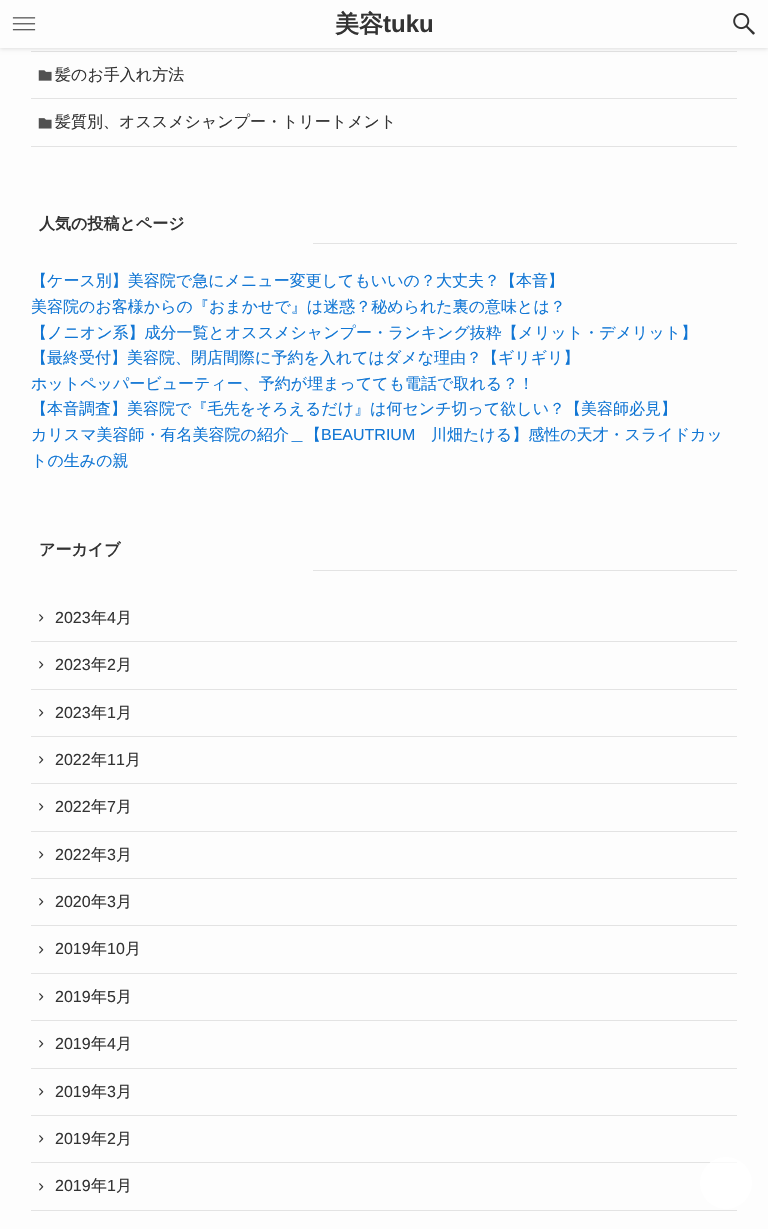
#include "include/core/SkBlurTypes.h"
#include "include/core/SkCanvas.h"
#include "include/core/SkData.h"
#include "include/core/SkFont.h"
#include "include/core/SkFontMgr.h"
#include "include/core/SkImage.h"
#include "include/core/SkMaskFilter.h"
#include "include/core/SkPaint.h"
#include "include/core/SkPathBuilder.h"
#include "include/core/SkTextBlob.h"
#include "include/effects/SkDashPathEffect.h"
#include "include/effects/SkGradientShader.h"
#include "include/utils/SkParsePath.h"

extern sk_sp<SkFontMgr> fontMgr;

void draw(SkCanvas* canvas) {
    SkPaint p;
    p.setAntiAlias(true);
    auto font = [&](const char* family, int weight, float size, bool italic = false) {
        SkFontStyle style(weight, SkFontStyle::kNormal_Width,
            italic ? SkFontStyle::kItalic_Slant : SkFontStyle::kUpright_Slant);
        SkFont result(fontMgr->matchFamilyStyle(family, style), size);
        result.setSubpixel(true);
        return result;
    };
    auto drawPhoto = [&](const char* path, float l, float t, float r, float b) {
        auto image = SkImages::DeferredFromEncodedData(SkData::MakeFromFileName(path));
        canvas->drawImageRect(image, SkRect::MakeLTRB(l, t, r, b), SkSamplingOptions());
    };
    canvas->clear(0xFFFDFDFD);
    p.setColor(0xFFE3E3E3);
    canvas->drawRect(SkRect::MakeLTRB(31, 51, 737, 52), p);
    p.setColor(0x1F000000);
    p.setMaskFilter(SkMaskFilter::MakeBlur(kNormal_SkBlurStyle, 2));
    canvas->drawRect(SkRect::MakeLTRB(0, 1, 768, 49), p);
    p.setMaskFilter(nullptr);
    p.setColor(0xFFFDFDFD);
    canvas->drawRect(SkRect::MakeLTRB(0, 0, 768, 48), p);
    drawPhoto("media/1.png", 12, 17, 36, 31);
    auto font1 = font("WenQuanYi Zen Hei", 700, 24);
    p.setColor(0xFF333333);
    canvas->drawString("美容", 335, 32, font1, p);
    auto font2 = font("Liberation Sans", 700, 24);
    canvas->drawString("tuku", 383, 32, font2, p);
    drawPhoto("media/2.png", 733, 13, 755, 35);
    p.setColor(0xFFE3E3E3);
    canvas->drawRect(SkRect::MakeLTRB(31, 98, 737, 99), p);
    drawPhoto("media/3.png", 38, 70, 52, 81);
    auto font3 = font("WenQuanYi Zen Hei", 500, 16);
    p.setColor(0xFF333333);
    canvas->drawString("髪のお手入れ方法", 55, 80, font3, p);
    p.setColor(0xFFE3E3E3);
    canvas->drawRect(SkRect::MakeLTRB(31, 146, 737, 147), p);
    drawPhoto("media/4.png", 38, 118, 52, 129);
    p.setColor(0xFF333333);
    canvas->drawString("髪質別、オススメシャンプー・トリートメント", 55, 127, font3, p);
    auto font4 = font("WenQuanYi Zen Hei", 700, 16);
    canvas->drawString("人気の投稿とページ", 39, 229, font4, p);
    p.setColor(0xFFE3E3E3);
    canvas->drawRect(SkRect::MakeLTRB(313, 243, 737, 244), p);
    p.setColor(0xFF1176D4);
    {
        const struct { const char* s; float x, y; } items[] = {
            {"【ケース別】美容院で急にメニュー変更してもいいの？大丈夫？【本音】", 31, 286},
            {"美容院のお客様からの『おまかせで』は迷惑？秘められた裏の意味とは？", 31, 312},
            {"【ノニオン系】成分一覧とオススメシャンプー・ランキング抜粋【メリット・デメリット】", 31, 338},
            {"【最終受付】美容院、閉店間際に予約を入れてはダメな理由？【ギリギリ】", 31, 363},
            {"ホットペッパービューティー、予約が埋まってても電話で取れる？！", 31, 389},
            {"【本音調査】美容院で『毛先をそろえるだけ』は何センチ切って欲しい？【美容師必見】", 31, 414},
            {"カリスマ美容師・有名美容院の紹介＿【", 31, 440},
        };
        for (auto [s, x, y] : items) {
            canvas->drawString(s, x, y, font3, p);
        }
    }
    auto font5 = font("Liberation Sans", 400, 16);
    canvas->drawString("BEAUTRIUM", 321, 440, font5, p);
    canvas->drawString("川畑たける】感性の天才・スライドカッ", 431, 440, font3, p);
    canvas->drawString("トの生みの親", 31, 466, font3, p);
    p.setColor(0xFF333333);
    canvas->drawString("アーカイブ", 39, 555, font4, p);
    p.setColor(0xFFE3E3E3);
    canvas->drawRect(SkRect::MakeLTRB(313, 570, 737, 571), p);
    canvas->drawRect(SkRect::MakeLTRB(31, 641, 737, 642), p);
    drawPhoto("media/5.png", 39, 614, 44, 622);
    p.setColor(0xFF333333);
    canvas->drawString("2023", 55, 623, font5, p);
    canvas->drawString("年", 91, 623, font3, p);
    canvas->drawString("4", 107, 623, font5, p);
    canvas->drawString("月", 116, 623, font3, p);
    p.setColor(0xFFE3E3E3);
    canvas->drawRect(SkRect::MakeLTRB(31, 689, 737, 690), p);
    drawPhoto("media/5.png", 39, 661, 44, 669);
    p.setColor(0xFF333333);
    canvas->drawString("2023", 55, 670, font5, p);
    canvas->drawString("年", 91, 670, font3, p);
    canvas->drawString("2", 107, 670, font5, p);
    canvas->drawString("月", 116, 670, font3, p);
    p.setColor(0xFFE3E3E3);
    canvas->drawRect(SkRect::MakeLTRB(31, 736, 737, 737), p);
    drawPhoto("media/5.png", 39, 709, 44, 717);
    p.setColor(0xFF333333);
    canvas->drawString("2023", 55, 718, font5, p);
    canvas->drawString("年", 91, 718, font3, p);
    canvas->drawString("1", 107, 718, font5, p);
    canvas->drawString("月", 116, 718, font3, p);
    p.setColor(0xFFE3E3E3);
    canvas->drawRect(SkRect::MakeLTRB(31, 783, 737, 784), p);
    drawPhoto("media/5.png", 39, 756, 44, 764);
    p.setColor(0xFF333333);
    canvas->drawString("2022", 55, 765, font5, p);
    canvas->drawString("年", 91, 765, font3, p);
    canvas->drawString("11", 107, 765, font5, p);
    canvas->drawString("月", 125, 765, font3, p);
    p.setColor(0xFFE3E3E3);
    canvas->drawRect(SkRect::MakeLTRB(31, 831, 737, 832), p);
    drawPhoto("media/5.png", 39, 803, 44, 811);
    p.setColor(0xFF333333);
    canvas->drawString("2022", 55, 812, font5, p);
    canvas->drawString("年", 91, 812, font3, p);
    canvas->drawString("7", 107, 812, font5, p);
    canvas->drawString("月", 116, 812, font3, p);
    p.setColor(0xFFE3E3E3);
    canvas->drawRect(SkRect::MakeLTRB(31, 878, 737, 879), p);
    drawPhoto("media/5.png", 39, 851, 44, 859);
    p.setColor(0xFF333333);
    canvas->drawString("2022", 55, 860, font5, p);
    canvas->drawString("年", 91, 860, font3, p);
    canvas->drawString("3", 107, 860, font5, p);
    canvas->drawString("月", 116, 860, font3, p);
    p.setColor(0xFFE3E3E3);
    canvas->drawRect(SkRect::MakeLTRB(31, 925, 737, 926), p);
    drawPhoto("media/5.png", 39, 898, 44, 906);
    p.setColor(0xFF333333);
    canvas->drawString("2020", 55, 907, font5, p);
    canvas->drawString("年", 91, 907, font3, p);
    canvas->drawString("3", 107, 907, font5, p);
    canvas->drawString("月", 116, 907, font3, p);
    p.setColor(0xFFE3E3E3);
    canvas->drawRect(SkRect::MakeLTRB(31, 973, 737, 974), p);
    drawPhoto("media/5.png", 39, 946, 44, 954);
    p.setColor(0xFF333333);
    canvas->drawString("2019", 55, 954, font5, p);
    canvas->drawString("年", 91, 954, font3, p);
    canvas->drawString("10", 107, 954, font5, p);
    canvas->drawString("月", 125, 954, font3, p);
    p.setColor(0xFFE3E3E3);
    canvas->drawRect(SkRect::MakeLTRB(31, 1020, 737, 1021), p);
    drawPhoto("media/5.png", 39, 993, 44, 1001);
    p.setColor(0xFF333333);
    canvas->drawString("2019", 55, 1002, font5, p);
    canvas->drawString("年", 91, 1002, font3, p);
    canvas->drawString("5", 107, 1002, font5, p);
    canvas->drawString("月", 116, 1002, font3, p);
    p.setColor(0xFFE3E3E3);
    canvas->drawRect(SkRect::MakeLTRB(31, 1068, 737, 1069), p);
    drawPhoto("media/5.png", 39, 1040, 44, 1048);
    p.setColor(0xFF333333);
    canvas->drawString("2019", 55, 1049, font5, p);
    canvas->drawString("年", 91, 1049, font3, p);
    canvas->drawString("4", 107, 1049, font5, p);
    canvas->drawString("月", 116, 1049, font3, p);
    p.setColor(0xFFE3E3E3);
    canvas->drawRect(SkRect::MakeLTRB(31, 1115, 737, 1116), p);
    drawPhoto("media/5.png", 39, 1088, 44, 1096);
    p.setColor(0xFF333333);
    canvas->drawString("2019", 55, 1097, font5, p);
    canvas->drawString("年", 91, 1097, font3, p);
    canvas->drawString("3", 107, 1097, font5, p);
    canvas->drawString("月", 116, 1097, font3, p);
    p.setColor(0xFFE3E3E3);
    canvas->drawRect(SkRect::MakeLTRB(31, 1162, 737, 1163), p);
    drawPhoto("media/5.png", 39, 1135, 44, 1143);
    p.setColor(0xFF333333);
    canvas->drawString("2019", 55, 1144, font5, p);
    canvas->drawString("年", 91, 1144, font3, p);
    canvas->drawString("2", 107, 1144, font5, p);
    canvas->drawString("月", 116, 1144, font3, p);
    p.setColor(0xFFE3E3E3);
    canvas->drawRect(SkRect::MakeLTRB(31, 1210, 737, 1211), p);
    drawPhoto("media/5.png", 39, 1183, 44, 1191);
    p.setColor(0xFF333333);
    canvas->drawString("2019", 55, 1191, font5, p);
    canvas->drawString("年", 91, 1191, font3, p);
    canvas->drawString("1", 107, 1191, font5, p);
    canvas->drawString("月", 116, 1191, font3, p);
    p.setColor(0xBFFFFFFF);
    canvas->drawCircle(726, 1183, 26, p);
    p.setStyle(SkPaint::kStroke_Style);
    p.setStrokeWidth(1);
    canvas->drawCircle(726, 1183, 25.5f, p);
}
